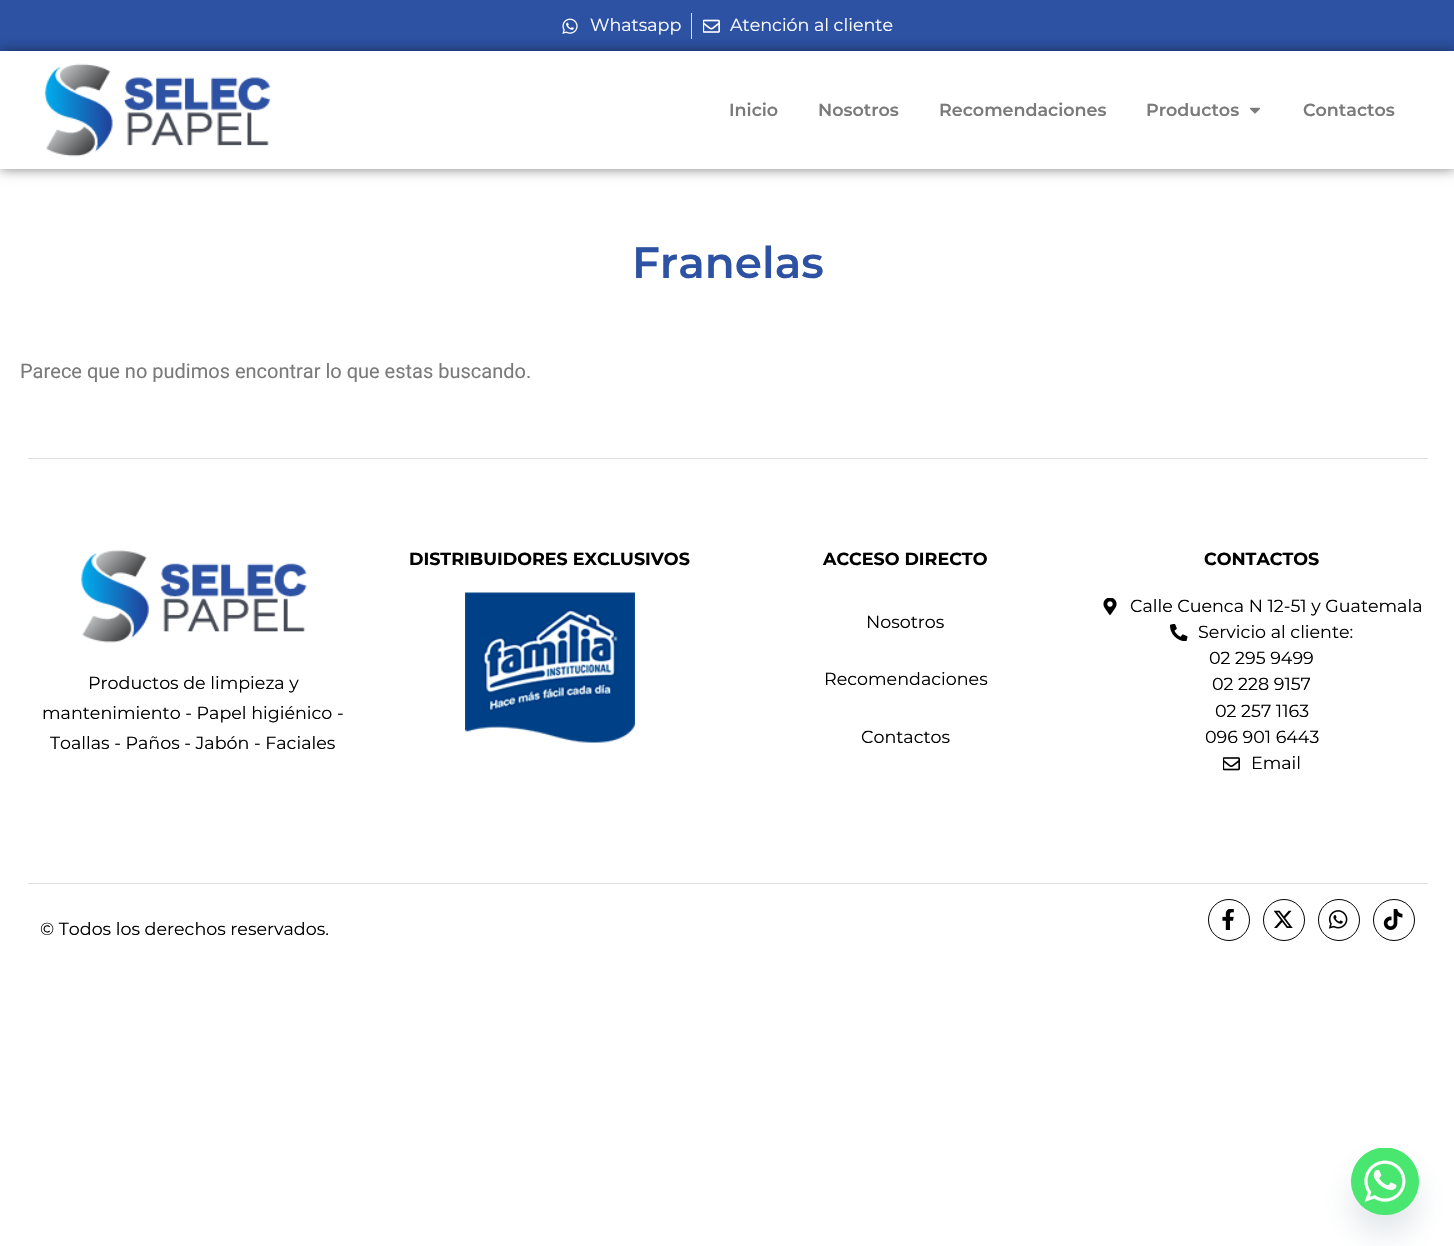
#include "include/core/SkBlurTypes.h"
#include "include/core/SkCanvas.h"
#include "include/core/SkData.h"
#include "include/core/SkFont.h"
#include "include/core/SkFontMgr.h"
#include "include/core/SkImage.h"
#include "include/core/SkMaskFilter.h"
#include "include/core/SkPaint.h"
#include "include/core/SkPathBuilder.h"
#include "include/core/SkTextBlob.h"
#include "include/effects/SkDashPathEffect.h"
#include "include/effects/SkGradientShader.h"
#include "include/utils/SkParsePath.h"

extern sk_sp<SkFontMgr> fontMgr;

void draw(SkCanvas* canvas) {
    SkPaint p;
    p.setAntiAlias(true);
    auto font = [&](const char* family, int weight, float size, bool italic = false) {
        SkFontStyle style(weight, SkFontStyle::kNormal_Width,
            italic ? SkFontStyle::kItalic_Slant : SkFontStyle::kUpright_Slant);
        SkFont result(fontMgr->matchFamilyStyle(family, style), size);
        result.setSubpixel(true);
        return result;
    };
    auto drawPhoto = [&](const char* path, float l, float t, float r, float b) {
        auto image = SkImages::DeferredFromEncodedData(SkData::MakeFromFileName(path));
        canvas->drawImageRect(image, SkRect::MakeLTRB(l, t, r, b), SkSamplingOptions());
    };
    canvas->clear(0xFFFFFFFF);
    p.setColor(0xFF2D52A3);
    canvas->drawRect(SkRect::MakeLTRB(0, 0, 1454, 51), p);
    drawPhoto("media/1.png", 562, 18, 578, 34);
    auto font1 = font("Montserrat", 400, 17.5f);
    p.setColor(0xFFFFFFFF);
    canvas->drawString("Whatsapp", 590, 31, font1, p);
    p.setColor(0xFFDDDDDD);
    canvas->drawRect(SkRect::MakeLTRB(691, 13, 692, 39), p);
    drawPhoto("media/2.png", 703, 19, 720, 33);
    p.setColor(0xFFFFFFFF);
    canvas->drawString("Atención al cliente", 730, 31, font1, p);
    canvas->save();
    canvas->clipPath(SkPathBuilder(SkPathFillType::kEvenOdd).moveTo(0, 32).lineTo(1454, 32).lineTo(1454, 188).lineTo(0, 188).close().moveTo(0, 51).lineTo(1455, 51).lineTo(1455, 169).lineTo(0, 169).close().detach(), true);
    p.setColor(0x80000000);
    p.setMaskFilter(SkMaskFilter::MakeBlur(kNormal_SkBlurStyle, 6));
    canvas->drawRect(SkRect::MakeLTRB(0, 51, 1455, 169), p);
    p.setMaskFilter(nullptr);
    canvas->restore();
    drawPhoto("media/3.png", 44, 63, 271, 157);
    auto font2 = font("Montserrat", 600, 17.5f);
    p.setColor(0xFF7A7A7A);
    {
        const struct { const char* s; float x, y; } items[] = {
            {"Inicio", 729, 116},
            {"Nosotros", 818, 116},
            {"Recomendaciones", 939, 116},
            {"Productos", 1146, 116},
        };
        for (auto [s, x, y] : items) {
            canvas->drawString(s, x, y, font2, p);
        }
    }
    drawPhoto("media/4.png", 1250, 107, 1260, 114);
    canvas->drawString("Contactos", 1303, 116, font2, p);
    auto font3 = font("Montserrat", 600, 43.75f);
    p.setColor(0xFF2D52A3);
    canvas->drawString("Franelas", 632, 278, font3, p);
    auto font4 = font("Roboto", 400, 20);
    p.setColor(0xFF7A7A7A);
    canvas->drawString("Parece que no pudimos encontrar lo que estas buscando.", 20, 378, font4, p);
    p.setColor(0xFFDFDFDF);
    canvas->drawRect(SkRect::MakeLTRB(28, 458, 1428, 459), p);
    drawPhoto("media/5.png", 81, 550, 307, 643);
    p.setColor(0xFF000000);
    {
        const struct { const char* s; float x, y; } items[] = {
            {"Productos de limpieza y", 88, 689},
            {"mantenimiento - Papel higiénico -", 42, 719},
            {"Toallas - Paños - Jabón - Faciales", 50, 749},
        };
        for (auto [s, x, y] : items) {
            canvas->drawString(s, x, y, font1, p);
        }
    }
    auto font5 = font("Montserrat", 700, 17.5f);
    canvas->drawString("DISTRIBUIDORES EXCLUSIVOS", 409, 565, font5, p);
    drawPhoto("media/6.png", 465, 592, 635, 743);
    canvas->drawString("ACCESO DIRECTO", 823, 565, font5, p);
    {
        const struct { const char* s; float x, y; } items[] = {
            {"Nosotros", 866, 628},
            {"Recomendaciones", 824, 685},
            {"Contactos", 861, 743},
        };
        for (auto [s, x, y] : items) {
            canvas->drawString(s, x, y, font1, p);
        }
    }
    canvas->drawString("CONTACTOS", 1204, 565, font5, p);
    drawPhoto("media/7.png", 1103, 598, 1117, 615);
    canvas->drawString("Calle Cuenca N 12-51 y Guatemala", 1130, 612, font1, p);
    drawPhoto("media/8.png", 1170, 624, 1188, 641);
    {
        const struct { const char* s; float x, y; } items[] = {
            {"Servicio al cliente:", 1198, 638},
            {"02 295 9499", 1209, 664},
            {"02 228 9157", 1212, 690},
            {"02 257 1163", 1215, 717},
            {"096 901 6443", 1205, 743},
        };
        for (auto [s, x, y] : items) {
            canvas->drawString(s, x, y, font1, p);
        }
    }
    drawPhoto("media/9.png", 1223, 757, 1240, 771);
    canvas->drawString("Email", 1251, 769, font1, p);
    p.setColor(0xFFDFDFDF);
    canvas->drawRect(SkRect::MakeLTRB(28, 883, 1428, 884), p);
    p.setColor(0xFF000000);
    canvas->drawString("© Todos los derechos reservados.", 40, 935, font1, p);
    p.setStyle(SkPaint::kStroke_Style);
    p.setStrokeWidth(1);
    canvas->drawCircle(1229, 920, 20.5f, p);
    drawPhoto("media/10.png", 1222, 909, 1234, 930);
    canvas->drawCircle(1284, 920, 20.5f, p);
    drawPhoto("media/11.png", 1273, 910, 1293, 928);
    canvas->drawCircle(1339, 920, 20.5f, p);
    drawPhoto("media/12.png", 1328, 910, 1348, 929);
    canvas->drawCircle(1394, 920, 20.5f, p);
    drawPhoto("media/13.png", 1383, 909, 1403, 930);
    p.setStyle(SkPaint::kFill_Style);
    p.setColor(0x2949687E);
    p.setMaskFilter(SkMaskFilter::MakeBlur(kNormal_SkBlurStyle, 15));
    canvas->drawRoundRect(SkRect::MakeLTRB(1351, 1168, 1419, 1235), 33.5f, 33.5f, p);
    p.setMaskFilter(nullptr);
    p.setColor(0xFF49E670);
    canvas->drawRoundRect(SkRect::MakeLTRB(1351, 1148, 1419, 1215), 33.5f, 33.5f, p);
    drawPhoto("media/14.png", 1351, 1148, 1419, 1215);
}
